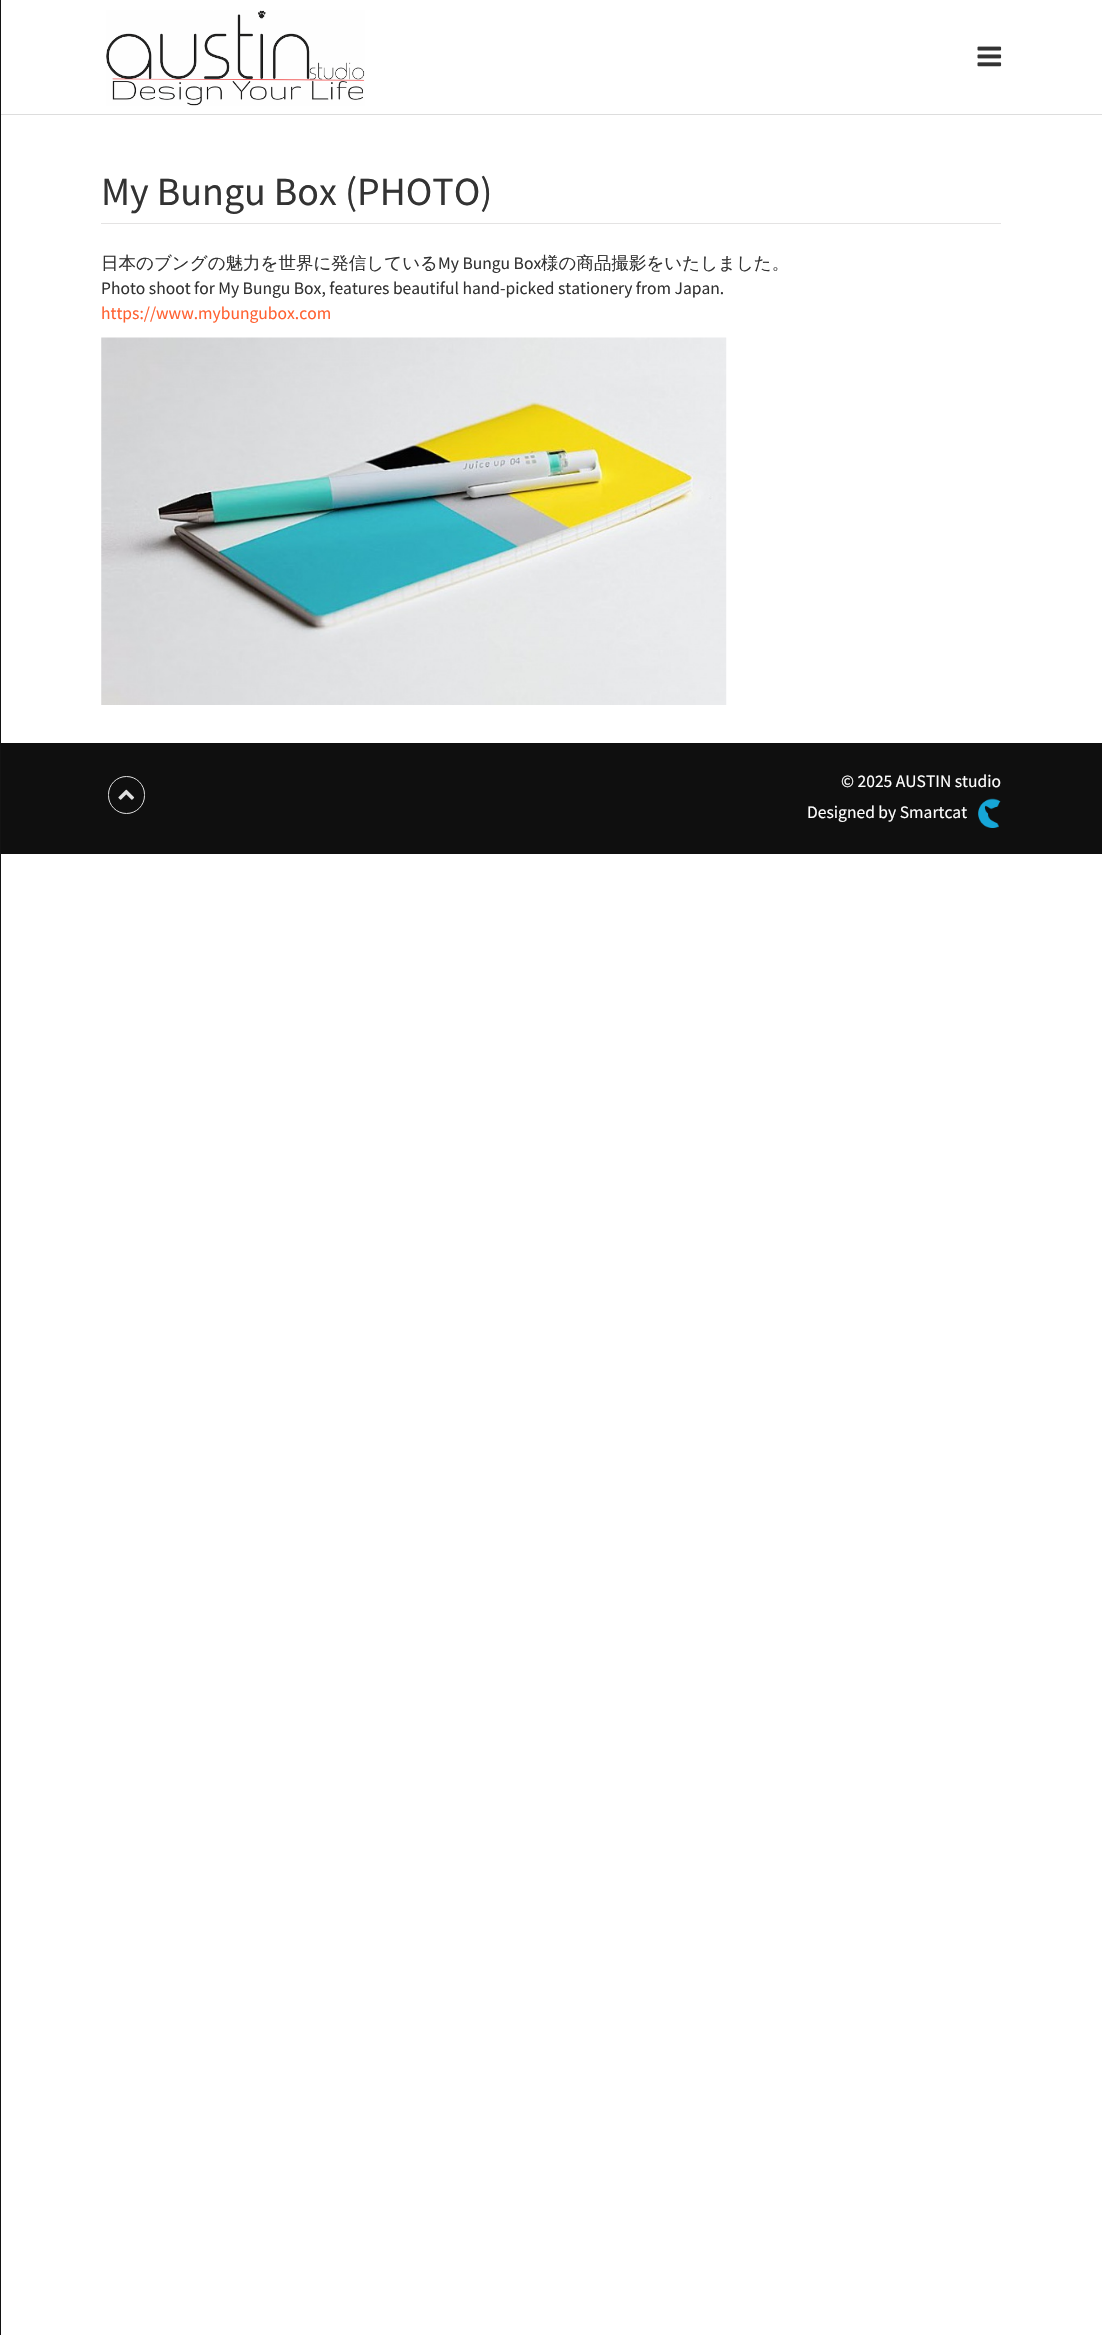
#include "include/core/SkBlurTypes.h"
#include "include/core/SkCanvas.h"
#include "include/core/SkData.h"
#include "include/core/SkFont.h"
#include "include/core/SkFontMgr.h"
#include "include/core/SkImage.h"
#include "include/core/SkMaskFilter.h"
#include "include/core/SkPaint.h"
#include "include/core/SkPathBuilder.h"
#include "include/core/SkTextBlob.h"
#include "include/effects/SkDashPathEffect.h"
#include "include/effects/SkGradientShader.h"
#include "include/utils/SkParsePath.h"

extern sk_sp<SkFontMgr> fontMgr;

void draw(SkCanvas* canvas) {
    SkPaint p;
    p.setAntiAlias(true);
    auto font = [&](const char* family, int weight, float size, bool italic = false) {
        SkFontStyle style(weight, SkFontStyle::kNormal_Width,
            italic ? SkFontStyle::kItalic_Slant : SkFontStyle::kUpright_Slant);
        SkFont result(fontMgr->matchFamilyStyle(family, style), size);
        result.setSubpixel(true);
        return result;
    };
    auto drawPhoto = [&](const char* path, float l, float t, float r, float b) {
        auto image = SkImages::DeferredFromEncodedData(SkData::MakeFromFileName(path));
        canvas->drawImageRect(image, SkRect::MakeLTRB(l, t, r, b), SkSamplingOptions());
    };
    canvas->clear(0xFFFFFFFF);
    p.setColor(0xFFDDDDDD);
    canvas->drawRect(SkRect::MakeLTRB(0, 114, 1102, 115), p);
    p.setColor(0xFF131313);
    canvas->drawRect(SkRect::MakeLTRB(0, 0, 1, 2335), p);
    drawPhoto("media/1.png", 106, 10, 365, 106);
    drawPhoto("media/2.png", 977, 46, 1002, 67);
    p.setColor(0xFFE4E3E3);
    canvas->drawRect(SkRect::MakeLTRB(101, 223, 1001, 224), p);
    auto font1 = font("Source Sans Pro", 400, 40);
    p.setColor(0xFF333333);
    canvas->drawString("My Bungu Box (PHOTO)", 101, 205, font1, p);
    auto font2 = font("WenQuanYi Zen Hei", 500, 17.5f);
    canvas->drawString("日本のブングの魅力を世界に発信している", 101, 269, font2, p);
    auto font3 = font("Source Sans Pro", 400, 17.5f);
    canvas->drawString("My Bungu Box", 438, 269, font3, p);
    canvas->drawString("様の商品撮影をいたしました。", 541, 269, font2, p);
    canvas->drawString("Photo shoot for My Bungu Box, features beautiful hand-picked stationery from Japan.", 101, 294, font3, p);
    p.setColor(0xFFFF6131);
    canvas->drawString("https://www.mybungubox.com", 101, 319, font3, p);
    drawPhoto("media/3.png", 101, 337, 727, 705);
    p.setColor(0xFF0F0F0F);
    canvas->drawRect(SkRect::MakeLTRB(1, 743, 1102, 854), p);
    p.setStyle(SkPaint::kStroke_Style);
    p.setStrokeWidth(1);
    p.setColor(0xFFE0E0E0);
    canvas->drawRoundRect(SkRect::MakeLTRB(108.5f, 776.5f, 144.5f, 813.5f), 18, 18, p);
    drawPhoto("media/4.png", 118, 789, 135, 800);
    p.setStyle(SkPaint::kFill_Style);
    p.setColor(0xFFFFFFFF);
    canvas->drawString("© 2025 AUSTIN studio", 841, 787, font3, p);
    canvas->drawString("Designed by Smartcat", 807, 818, font3, p);
    drawPhoto("media/5.png", 978, 798, 1001, 828);
}
